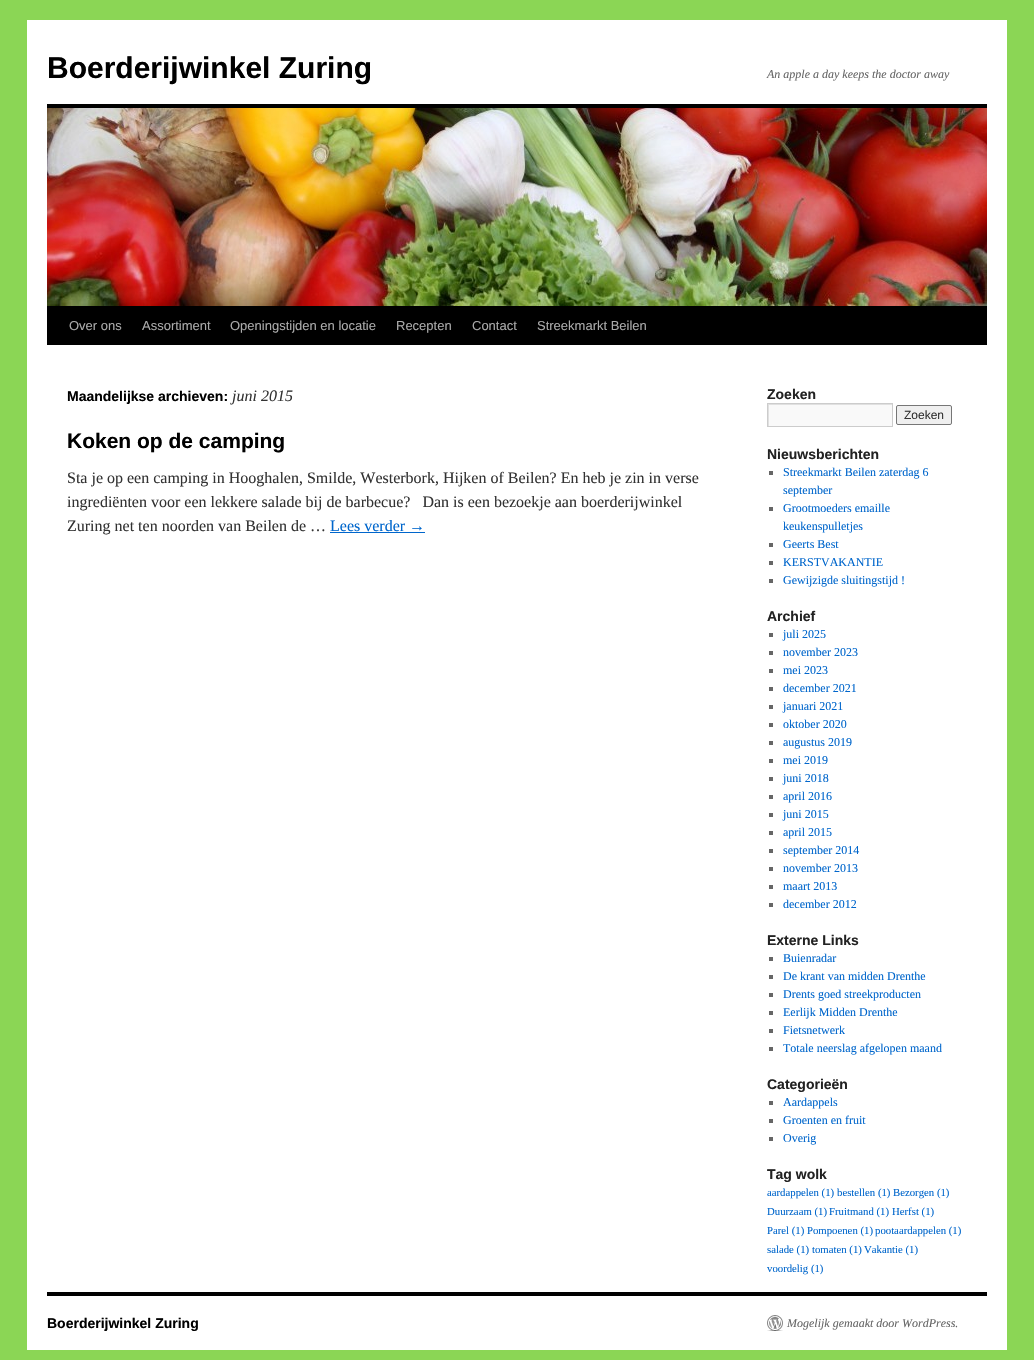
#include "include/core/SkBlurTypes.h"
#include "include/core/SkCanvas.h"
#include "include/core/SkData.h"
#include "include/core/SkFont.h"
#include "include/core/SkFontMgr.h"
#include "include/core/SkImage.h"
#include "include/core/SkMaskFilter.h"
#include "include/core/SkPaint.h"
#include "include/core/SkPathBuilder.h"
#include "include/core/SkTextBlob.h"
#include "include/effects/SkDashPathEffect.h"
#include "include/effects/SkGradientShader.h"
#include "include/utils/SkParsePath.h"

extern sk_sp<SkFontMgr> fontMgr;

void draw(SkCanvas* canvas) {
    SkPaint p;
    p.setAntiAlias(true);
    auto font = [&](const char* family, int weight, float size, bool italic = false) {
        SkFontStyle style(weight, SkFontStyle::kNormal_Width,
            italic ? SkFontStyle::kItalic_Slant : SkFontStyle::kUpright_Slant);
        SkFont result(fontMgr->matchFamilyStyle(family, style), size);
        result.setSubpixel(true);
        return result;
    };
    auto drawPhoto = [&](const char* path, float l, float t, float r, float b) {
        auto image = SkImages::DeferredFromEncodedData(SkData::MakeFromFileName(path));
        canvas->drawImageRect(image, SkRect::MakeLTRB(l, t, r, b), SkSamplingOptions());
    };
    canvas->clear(0xFF8BD655);
    p.setColor(0xFFFFFFFF);
    canvas->drawRect(SkRect::MakeLTRB(27, 20, 1007, 1350), p);
    auto font1 = font("Liberation Sans", 700, 30);
    p.setColor(0xFF000000);
    canvas->drawString("Boerderijwinkel Zuring", 47, 78, font1, p);
    auto font2 = font("Liberation Serif", 400, 12, true);
    p.setColor(0xFF666666);
    canvas->drawString("An apple a day keeps the doctor away", 767, 78, font2, p);
    p.setColor(0xFF000000);
    canvas->drawRect(SkRect::MakeLTRB(47, 104, 987, 108), p);
    canvas->drawRect(SkRect::MakeLTRB(47, 306, 987, 345), p);
    drawPhoto("media/1.png", 47, 108, 987, 306);
    auto font3 = font("Liberation Sans", 400, 13);
    p.setColor(0xFFAAAAAA);
    {
        const struct { const char* s; float x, y; } items[] = {
            {"Over ons", 69, 330},
            {"Assortiment", 142, 330},
            {"Openingstijden en locatie", 230, 330},
            {"Recepten", 396, 330},
            {"Contact", 472, 330},
            {"Streekmarkt Beilen", 537, 330},
        };
        for (auto [s, x, y] : items) {
            canvas->drawString(s, x, y, font3, p);
        }
    }
    auto font4 = font("Liberation Sans", 700, 14);
    p.setColor(0xFF000000);
    canvas->drawString("Maandelijkse archieven:", 67, 401, font4, p);
    auto font5 = font("Liberation Serif", 400, 16, true);
    p.setColor(0xFF333333);
    canvas->drawString("juni 2015", 232, 401, font5, p);
    auto font6 = font("Liberation Sans", 700, 21);
    p.setColor(0xFF000000);
    canvas->drawString("Koken op de camping", 67, 448, font6, p);
    auto font7 = font("Liberation Serif", 400, 16);
    p.setColor(0xFF333333);
    {
        const struct { const char* s; float x, y; } items[] = {
            {"Sta je op een camping in Hooghalen, Smilde, Westerbork, Hijken of Beilen? En heb je zin in verse", 67, 483},
            {"ingrediënten voor een lekkere salade bij de barbecue?   Dan is een bezoekje aan boerderijwinkel", 67, 507},
            {"Zuring net ten noorden van Beilen de …", 67, 531},
        };
        for (auto [s, x, y] : items) {
            canvas->drawString(s, x, y, font7, p);
        }
    }
    p.setColor(0xFF0066CC);
    canvas->drawString("Lees verder →", 330, 531, font7, p);
    canvas->drawRect(SkRect::MakeLTRB(330, 532, 425, 533), p);
    p.setColor(0xFF222222);
    canvas->drawString("Zoeken", 767, 399, font4, p);
    p.setColor(0xFFF9F9F9);
    canvas->drawRect(SkRect::MakeLTRB(769, 405, 892, 426), p);
    canvas->save();
    canvas->clipRect(SkRect::MakeLTRB(768, 404, 892, 426));
    p.setColor(0xFFE0E0E0);
    canvas->drawPath(SkPathBuilder(SkPathFillType::kEvenOdd).moveTo(669, 305).lineTo(991, 305).lineTo(991, 525).lineTo(669, 525).close().moveTo(769, 405).lineTo(893, 405).lineTo(893, 427).lineTo(769, 427).close().detach(), p);
    canvas->restore();
    p.setStyle(SkPaint::kStroke_Style);
    p.setStrokeWidth(1);
    p.setColor(0xFFCCCCCC);
    canvas->drawRect(SkRect::MakeLTRB(767.5f, 403.5f, 892.5f, 426.5f), p);
    p.setStyle(SkPaint::kFill_Style);
    p.setColor(0xFFEFEFEF);
    canvas->drawRoundRect(SkRect::MakeLTRB(896.5f, 405.5f, 951.5f, 424.5f), 1.5f, 1.5f, p);
    p.setStyle(SkPaint::kStroke_Style);
    p.setColor(0xFF767676);
    canvas->drawRoundRect(SkRect::MakeLTRB(896.5f, 405.5f, 951.5f, 424.5f), 1.5f, 1.5f, p);
    auto font8 = font("Liberation Sans", 400, 12);
    p.setStyle(SkPaint::kFill_Style);
    p.setColor(0xFF333333);
    canvas->drawString("Zoeken", 904, 419, font8, p);
    p.setColor(0xFF222222);
    canvas->drawString("Nieuwsberichten", 767, 459, font4, p);
    p.setColor(0xFF666666);
    canvas->drawRect(SkRect::MakeLTRB(769, 471, 773, 475), p);
    auto font9 = font("Liberation Serif", 400, 12);
    p.setColor(0xFF0066CC);
    canvas->drawString("Streekmarkt Beilen zaterdag 6", 783, 476, font9, p);
    canvas->drawString("september", 783, 494, font9, p);
    p.setColor(0xFF666666);
    canvas->drawRect(SkRect::MakeLTRB(769, 507, 773, 511), p);
    p.setColor(0xFF0066CC);
    canvas->drawString("Grootmoeders emaille", 783, 512, font9, p);
    canvas->drawString("keukenspulletjes", 783, 530, font9, p);
    p.setColor(0xFF666666);
    canvas->drawRect(SkRect::MakeLTRB(769, 543, 773, 547), p);
    p.setColor(0xFF0066CC);
    canvas->drawString("Geerts Best", 783, 548, font9, p);
    p.setColor(0xFF666666);
    canvas->drawRect(SkRect::MakeLTRB(769, 561, 773, 565), p);
    p.setColor(0xFF0066CC);
    canvas->drawString("KERSTVAKANTIE", 783, 566, font9, p);
    p.setColor(0xFF666666);
    canvas->drawRect(SkRect::MakeLTRB(769, 579, 773, 583), p);
    p.setColor(0xFF0066CC);
    canvas->drawString("Gewijzigde sluitingstijd !", 783, 584, font9, p);
    p.setColor(0xFF222222);
    canvas->drawString("Archief", 767, 621, font4, p);
    p.setColor(0xFF666666);
    canvas->drawRect(SkRect::MakeLTRB(769, 633, 773, 637), p);
    p.setColor(0xFF0066CC);
    canvas->drawString("juli 2025", 783, 638, font9, p);
    p.setColor(0xFF666666);
    canvas->drawRect(SkRect::MakeLTRB(769, 651, 773, 655), p);
    p.setColor(0xFF0066CC);
    canvas->drawString("november 2023", 783, 656, font9, p);
    p.setColor(0xFF666666);
    canvas->drawRect(SkRect::MakeLTRB(769, 669, 773, 673), p);
    p.setColor(0xFF0066CC);
    canvas->drawString("mei 2023", 783, 674, font9, p);
    p.setColor(0xFF666666);
    canvas->drawRect(SkRect::MakeLTRB(769, 687, 773, 691), p);
    p.setColor(0xFF0066CC);
    canvas->drawString("december 2021", 783, 692, font9, p);
    p.setColor(0xFF666666);
    canvas->drawRect(SkRect::MakeLTRB(769, 705, 773, 709), p);
    p.setColor(0xFF0066CC);
    canvas->drawString("januari 2021", 783, 710, font9, p);
    p.setColor(0xFF666666);
    canvas->drawRect(SkRect::MakeLTRB(769, 723, 773, 727), p);
    p.setColor(0xFF0066CC);
    canvas->drawString("oktober 2020", 783, 728, font9, p);
    p.setColor(0xFF666666);
    canvas->drawRect(SkRect::MakeLTRB(769, 741, 773, 745), p);
    p.setColor(0xFF0066CC);
    canvas->drawString("augustus 2019", 783, 746, font9, p);
    p.setColor(0xFF666666);
    canvas->drawRect(SkRect::MakeLTRB(769, 759, 773, 763), p);
    p.setColor(0xFF0066CC);
    canvas->drawString("mei 2019", 783, 764, font9, p);
    p.setColor(0xFF666666);
    canvas->drawRect(SkRect::MakeLTRB(769, 777, 773, 781), p);
    p.setColor(0xFF0066CC);
    canvas->drawString("juni 2018", 783, 782, font9, p);
    p.setColor(0xFF666666);
    canvas->drawRect(SkRect::MakeLTRB(769, 795, 773, 799), p);
    p.setColor(0xFF0066CC);
    canvas->drawString("april 2016", 783, 800, font9, p);
    p.setColor(0xFF666666);
    canvas->drawRect(SkRect::MakeLTRB(769, 813, 773, 817), p);
    p.setColor(0xFF0066CC);
    canvas->drawString("juni 2015", 783, 818, font9, p);
    p.setColor(0xFF666666);
    canvas->drawRect(SkRect::MakeLTRB(769, 831, 773, 835), p);
    p.setColor(0xFF0066CC);
    canvas->drawString("april 2015", 783, 836, font9, p);
    p.setColor(0xFF666666);
    canvas->drawRect(SkRect::MakeLTRB(769, 849, 773, 853), p);
    p.setColor(0xFF0066CC);
    canvas->drawString("september 2014", 783, 854, font9, p);
    p.setColor(0xFF666666);
    canvas->drawRect(SkRect::MakeLTRB(769, 867, 773, 871), p);
    p.setColor(0xFF0066CC);
    canvas->drawString("november 2013", 783, 872, font9, p);
    p.setColor(0xFF666666);
    canvas->drawRect(SkRect::MakeLTRB(769, 885, 773, 889), p);
    p.setColor(0xFF0066CC);
    canvas->drawString("maart 2013", 783, 890, font9, p);
    p.setColor(0xFF666666);
    canvas->drawRect(SkRect::MakeLTRB(769, 903, 773, 907), p);
    p.setColor(0xFF0066CC);
    canvas->drawString("december 2012", 783, 908, font9, p);
    p.setColor(0xFF222222);
    canvas->drawString("Externe Links", 767, 945, font4, p);
    p.setColor(0xFF666666);
    canvas->drawRect(SkRect::MakeLTRB(769, 957, 773, 961), p);
    p.setColor(0xFF0066CC);
    canvas->drawString("Buienradar", 783, 962, font9, p);
    p.setColor(0xFF666666);
    canvas->drawRect(SkRect::MakeLTRB(769, 975, 773, 979), p);
    p.setColor(0xFF0066CC);
    canvas->drawString("De krant van midden Drenthe", 783, 980, font9, p);
    p.setColor(0xFF666666);
    canvas->drawRect(SkRect::MakeLTRB(769, 993, 773, 997), p);
    p.setColor(0xFF0066CC);
    canvas->drawString("Drents goed streekproducten", 783, 998, font9, p);
    p.setColor(0xFF666666);
    canvas->drawRect(SkRect::MakeLTRB(769, 1011, 773, 1015), p);
    p.setColor(0xFF0066CC);
    canvas->drawString("Eerlijk Midden Drenthe", 783, 1016, font9, p);
    p.setColor(0xFF666666);
    canvas->drawRect(SkRect::MakeLTRB(769, 1029, 773, 1033), p);
    p.setColor(0xFF0066CC);
    canvas->drawString("Fietsnetwerk", 783, 1034, font9, p);
    p.setColor(0xFF666666);
    canvas->drawRect(SkRect::MakeLTRB(769, 1047, 773, 1051), p);
    p.setColor(0xFF0066CC);
    canvas->drawString("Totale neerslag afgelopen maand", 783, 1052, font9, p);
    p.setColor(0xFF222222);
    canvas->drawString("Categorieën", 767, 1089, font4, p);
    p.setColor(0xFF666666);
    canvas->drawRect(SkRect::MakeLTRB(769, 1101, 773, 1105), p);
    p.setColor(0xFF0066CC);
    canvas->drawString("Aardappels", 783, 1106, font9, p);
    p.setColor(0xFF666666);
    canvas->drawRect(SkRect::MakeLTRB(769, 1119, 773, 1123), p);
    p.setColor(0xFF0066CC);
    canvas->drawString("Groenten en fruit", 783, 1124, font9, p);
    p.setColor(0xFF666666);
    canvas->drawRect(SkRect::MakeLTRB(769, 1137, 773, 1141), p);
    p.setColor(0xFF0066CC);
    canvas->drawString("Overig", 783, 1142, font9, p);
    p.setColor(0xFF222222);
    canvas->drawString("Tag wolk", 767, 1179, font4, p);
    auto font10 = font("Liberation Serif", 400, 10.75f);
    p.setColor(0xFF0066CC);
    {
        const struct { const char* s; float x, y; } items[] = {
            {"aardappelen (1)", 767, 1196},
            {"bestellen (1)", 837, 1196},
            {"Bezorgen (1)", 893, 1196},
            {"Duurzaam (1)", 767, 1215},
            {"Fruitmand (1)", 829, 1215},
            {"Herfst (1)", 892, 1215},
            {"Parel (1)", 767, 1234},
            {"Pompoenen (1)", 807, 1234},
            {"pootaardappelen (1)", 875, 1234},
            {"salade (1)", 767, 1253},
            {"tomaten (1)", 812, 1253},
            {"Vakantie (1)", 864, 1253},
            {"voordelig (1)", 767, 1272},
        };
        for (auto [s, x, y] : items) {
            canvas->drawString(s, x, y, font10, p);
        }
    }
    p.setColor(0xFF000000);
    canvas->drawRect(SkRect::MakeLTRB(47, 1292, 987, 1296), p);
    canvas->drawString("Boerderijwinkel Zuring", 47, 1328, font4, p);
    drawPhoto("media/2.png", 767, 1315, 783, 1331);
    p.setColor(0xFF666666);
    canvas->drawString("Mogelijk gemaakt door WordPress.", 787, 1327, font2, p);
}
